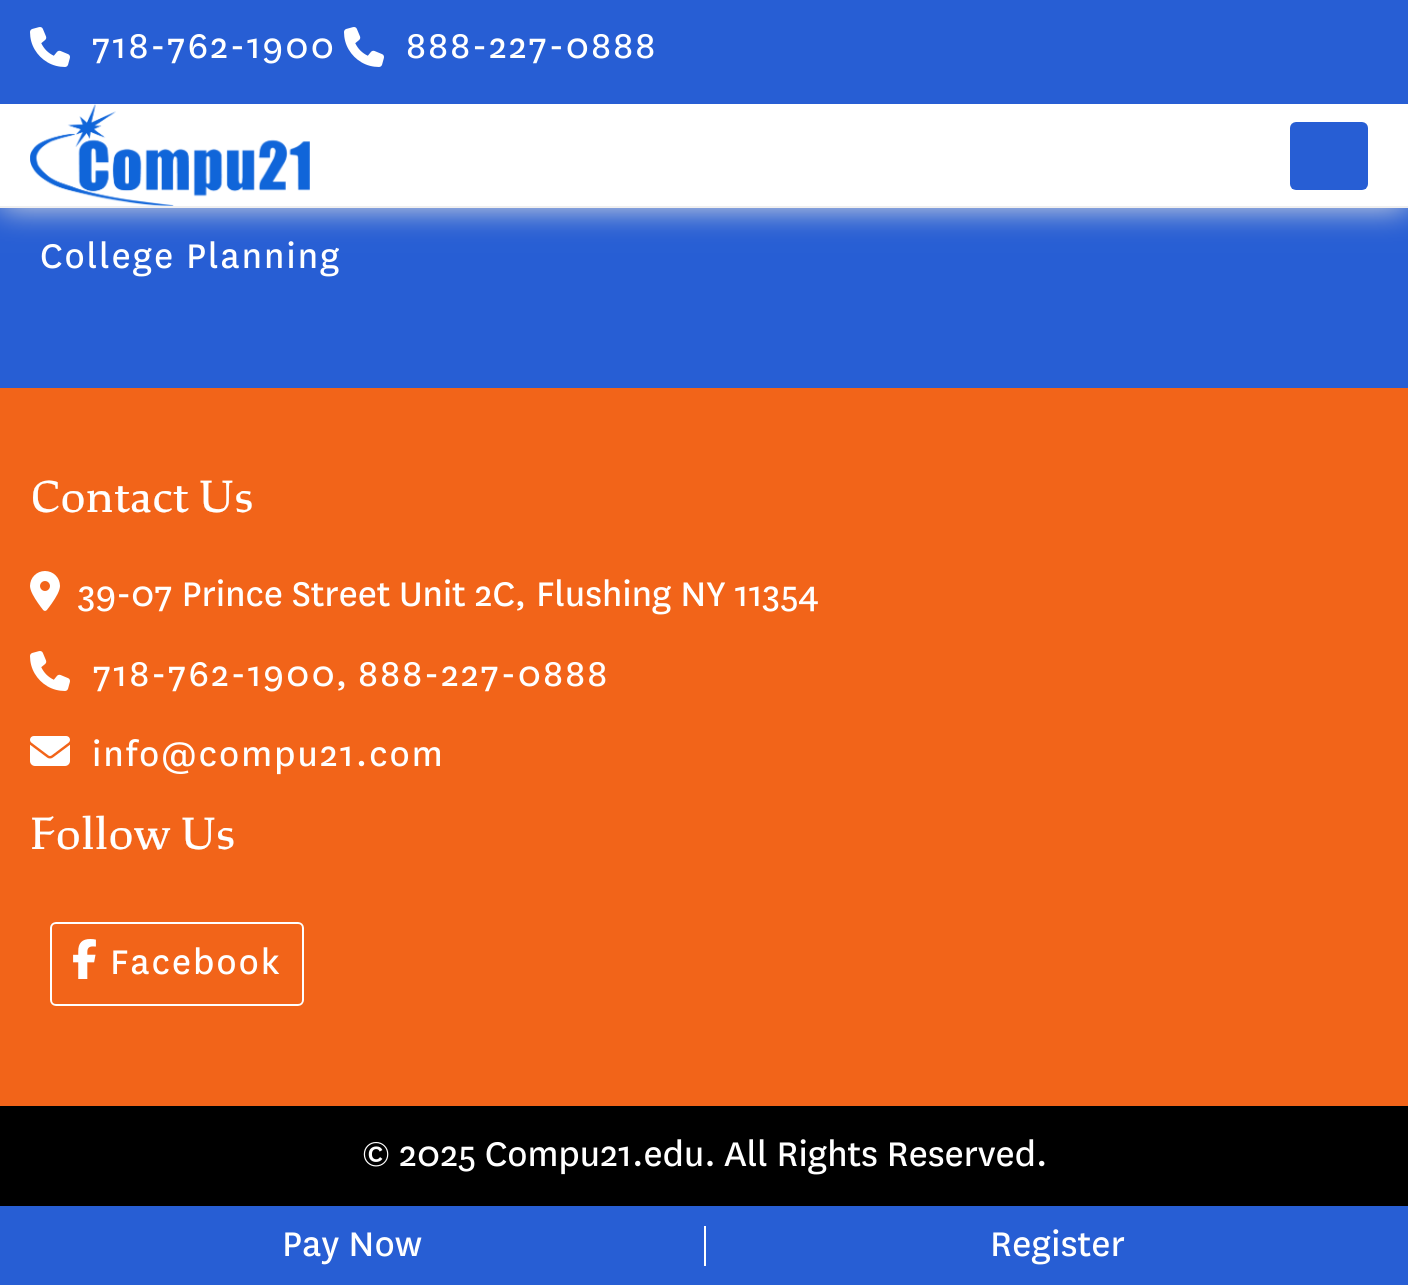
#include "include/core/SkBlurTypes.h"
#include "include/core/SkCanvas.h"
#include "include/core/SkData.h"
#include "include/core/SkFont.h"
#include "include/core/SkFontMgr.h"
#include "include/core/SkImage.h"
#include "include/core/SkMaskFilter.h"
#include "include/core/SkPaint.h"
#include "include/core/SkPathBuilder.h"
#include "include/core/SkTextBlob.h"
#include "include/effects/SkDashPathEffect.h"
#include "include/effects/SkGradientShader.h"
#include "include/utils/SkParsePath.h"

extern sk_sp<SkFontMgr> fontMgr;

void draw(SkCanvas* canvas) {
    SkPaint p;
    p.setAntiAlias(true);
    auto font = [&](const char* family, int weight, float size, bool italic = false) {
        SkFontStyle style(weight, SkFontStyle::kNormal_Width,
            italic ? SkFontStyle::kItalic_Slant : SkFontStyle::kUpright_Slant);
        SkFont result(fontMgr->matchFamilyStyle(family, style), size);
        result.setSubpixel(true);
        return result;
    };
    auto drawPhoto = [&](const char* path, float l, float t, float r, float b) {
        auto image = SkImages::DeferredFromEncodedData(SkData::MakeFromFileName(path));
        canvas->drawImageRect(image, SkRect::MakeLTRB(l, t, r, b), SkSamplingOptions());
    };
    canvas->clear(0xFF000000);
    p.setColor(0xFF275ED4);
    canvas->drawRect(SkRect::MakeLTRB(0, 208, 1408, 388), p);
    drawPhoto("media/7.png", 41, 241, 339, 277);
    p.setColor(0xFFE0E0E0);
    p.setMaskFilter(SkMaskFilter::MakeBlur(kNormal_SkBlurStyle, 15));
    canvas->drawRect(SkRect::MakeLTRB(0, 0, 1408, 208), p);
    p.setMaskFilter(nullptr);
    p.setColor(0xFFF0EFEF);
    canvas->drawRect(SkRect::MakeLTRB(0, 206, 1408, 208), p);
    p.setColor(0xFF275ED4);
    canvas->drawRect(SkRect::MakeLTRB(0, 0, 1408, 104), p);
    drawPhoto("media/1.png", 30, 27, 70, 67);
    drawPhoto("media/2.png", 93, 34, 333, 64);
    drawPhoto("media/1.png", 344, 27, 384, 67);
    drawPhoto("media/3.png", 407, 34, 654, 64);
    canvas->drawRect(SkRect::MakeLTRB(0, 1206, 1408, 1285), p);
    drawPhoto("media/4.png", 285, 1232, 422, 1265);
    p.setColor(0xFFFFFFFF);
    canvas->drawRect(SkRect::MakeLTRB(704, 1226, 706, 1266), p);
    drawPhoto("media/5.png", 993, 1229, 1125, 1265);
    canvas->drawRect(SkRect::MakeLTRB(0, 104, 1408, 206), p);
    drawPhoto("media/6.png", 30, 104, 310, 206);
    p.setColor(0xFF275ED4);
    canvas->drawRoundRect(SkRect::MakeLTRB(1290, 122, 1368, 190), 6, 6, p);
    p.setColor(0xFFF26419);
    canvas->drawRect(SkRect::MakeLTRB(0, 388, 1408, 1106), p);
    auto font1 = font("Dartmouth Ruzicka", 400, 48);
    p.setColor(0xFFFFFFFF);
    canvas->drawString("Contact Us", 30, 512, font1, p);
    drawPhoto("media/8.png", 30, 571, 60, 611);
    drawPhoto("media/9.png", 78, 579, 524, 612);
    drawPhoto("media/10.png", 539, 579, 818, 615);
    drawPhoto("media/11.png", 30, 651, 70, 691);
    drawPhoto("media/12.png", 93, 662, 333, 692);
    drawPhoto("media/13.png", 338, 681, 345, 691);
    drawPhoto("media/14.png", 359, 662, 606, 692);
    drawPhoto("media/15.png", 30, 736, 70, 766);
    drawPhoto("media/16.png", 94, 739, 440, 775);
    canvas->drawString("Follow Us", 30, 849, font1, p);
    p.setStyle(SkPaint::kStroke_Style);
    p.setStrokeWidth(2);
    canvas->drawRoundRect(SkRect::MakeLTRB(51, 923, 303, 1005), 5, 5, p);
    drawPhoto("media/17.png", 73, 939, 96, 979);
    drawPhoto("media/18.png", 113, 947, 280, 975);
    drawPhoto("media/19.png", 363, 1139, 713, 1175);
    drawPhoto("media/20.png", 724, 1139, 1045, 1175);
}
